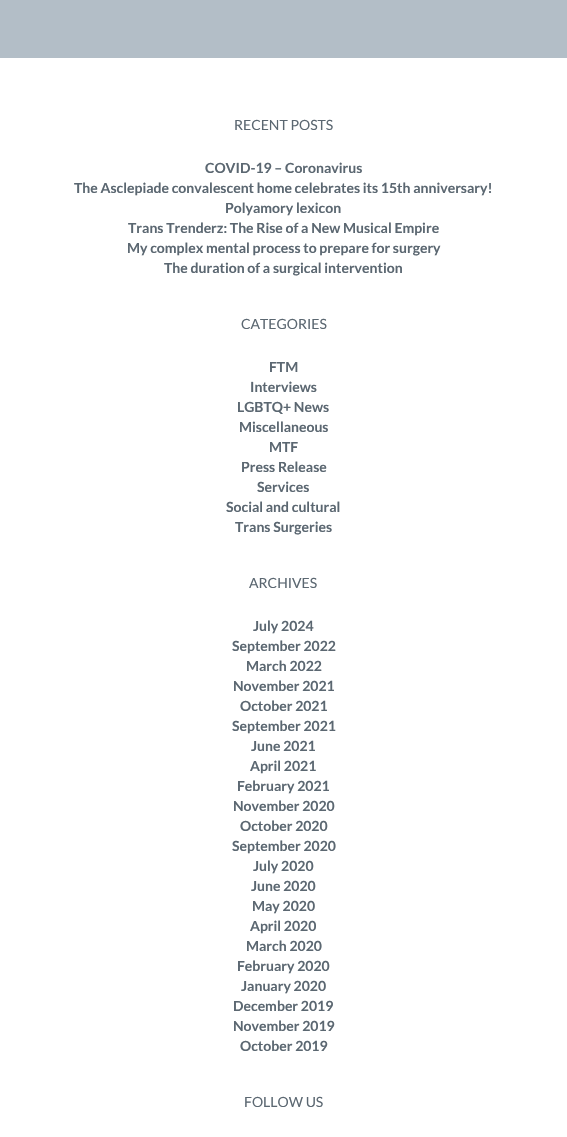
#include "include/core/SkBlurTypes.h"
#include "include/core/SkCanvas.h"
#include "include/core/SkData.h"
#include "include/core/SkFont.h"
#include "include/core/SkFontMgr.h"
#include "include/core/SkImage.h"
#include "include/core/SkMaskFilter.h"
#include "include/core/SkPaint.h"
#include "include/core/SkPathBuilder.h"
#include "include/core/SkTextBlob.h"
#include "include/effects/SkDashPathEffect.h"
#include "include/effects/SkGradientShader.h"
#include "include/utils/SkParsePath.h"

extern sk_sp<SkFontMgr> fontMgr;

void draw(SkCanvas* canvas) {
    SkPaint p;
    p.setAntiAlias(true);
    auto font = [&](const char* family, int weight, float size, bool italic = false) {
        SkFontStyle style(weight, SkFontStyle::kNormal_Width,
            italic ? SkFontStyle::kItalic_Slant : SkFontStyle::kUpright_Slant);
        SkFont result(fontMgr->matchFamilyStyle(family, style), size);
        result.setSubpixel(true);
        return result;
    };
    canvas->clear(0xFFFFFFFF);
    p.setColor(0xFFB3BEC7);
    canvas->drawRect(SkRect::MakeLTRB(0, 0, 567, 58), p);
    auto font1 = font("Lato", 400, 14);
    p.setColor(0xFF5B6771);
    canvas->drawString("RECENT POSTS", 234, 130, font1, p);
    auto font2 = font("Lato", 700, 14);
    {
        const struct { const char* s; float x, y; } items[] = {
            {"COVID-19 – Coronavirus", 205, 173},
            {"The Asclepiade convalescent home celebrates its 15th anniversary!", 74, 193},
            {"Polyamory lexicon", 225, 213},
            {"Trans Trenderz: The Rise of a New Musical Empire", 128, 233},
            {"My complex mental process to prepare for surgery", 127, 253},
            {"The duration of a surgical intervention", 164, 273},
        };
        for (auto [s, x, y] : items) {
            canvas->drawString(s, x, y, font2, p);
        }
    }
    canvas->drawString("CATEGORIES", 241, 329, font1, p);
    {
        const struct { const char* s; float x, y; } items[] = {
            {"FTM", 269, 372},
            {"Interviews", 250, 392},
            {"LGBTQ+ News", 237, 412},
            {"Miscellaneous", 239, 432},
            {"MTF", 269, 452},
            {"Press Release", 241, 472},
            {"Services", 257, 492},
            {"Social and cultural", 226, 512},
            {"Trans Surgeries", 235, 532},
        };
        for (auto [s, x, y] : items) {
            canvas->drawString(s, x, y, font2, p);
        }
    }
    canvas->drawString("ARCHIVES", 249, 588, font1, p);
    {
        const struct { const char* s; float x, y; } items[] = {
            {"July 2024", 253, 631},
            {"September 2022", 232, 651},
            {"March 2022", 246, 671},
            {"November 2021", 233, 691},
            {"October 2021", 240, 711},
            {"September 2021", 232, 731},
            {"June 2021", 251, 751},
            {"April 2021", 250, 771},
            {"February 2021", 237, 791},
            {"November 2020", 233, 811},
            {"October 2020", 240, 831},
            {"September 2020", 232, 851},
            {"July 2020", 253, 871},
            {"June 2020", 251, 891},
            {"May 2020", 252, 911},
            {"April 2020", 250, 931},
            {"March 2020", 246, 951},
            {"February 2020", 237, 971},
            {"January 2020", 241, 991},
            {"December 2019", 233, 1011},
            {"November 2019", 233, 1031},
            {"October 2019", 240, 1051},
        };
        for (auto [s, x, y] : items) {
            canvas->drawString(s, x, y, font2, p);
        }
    }
    canvas->drawString("FOLLOW US", 244, 1107, font1, p);
}
